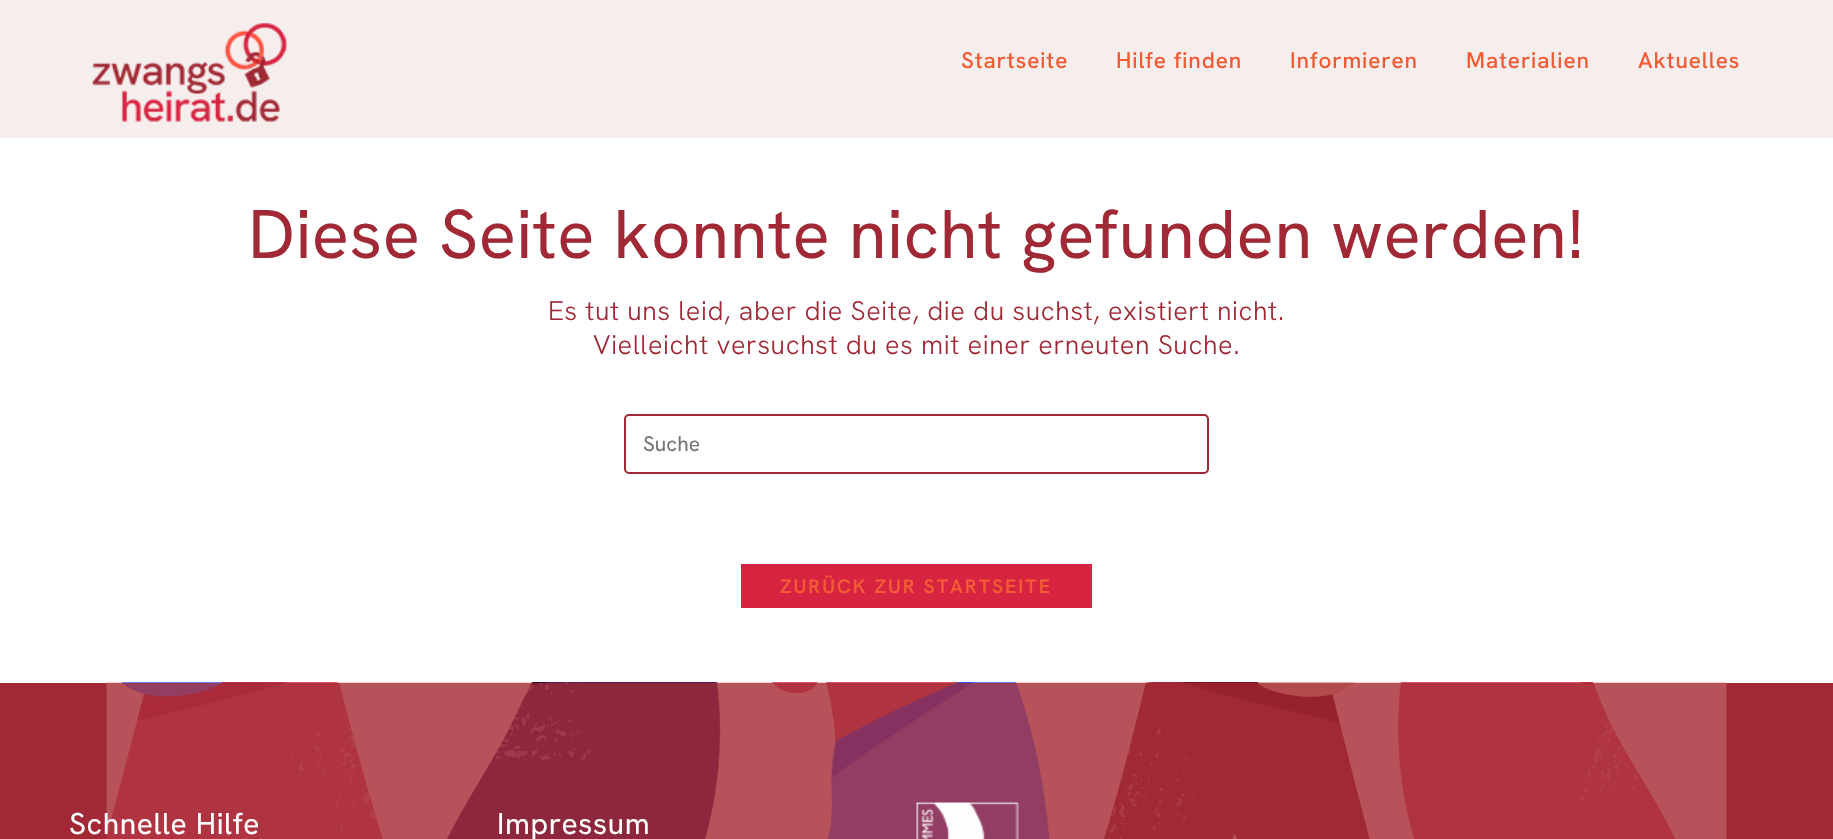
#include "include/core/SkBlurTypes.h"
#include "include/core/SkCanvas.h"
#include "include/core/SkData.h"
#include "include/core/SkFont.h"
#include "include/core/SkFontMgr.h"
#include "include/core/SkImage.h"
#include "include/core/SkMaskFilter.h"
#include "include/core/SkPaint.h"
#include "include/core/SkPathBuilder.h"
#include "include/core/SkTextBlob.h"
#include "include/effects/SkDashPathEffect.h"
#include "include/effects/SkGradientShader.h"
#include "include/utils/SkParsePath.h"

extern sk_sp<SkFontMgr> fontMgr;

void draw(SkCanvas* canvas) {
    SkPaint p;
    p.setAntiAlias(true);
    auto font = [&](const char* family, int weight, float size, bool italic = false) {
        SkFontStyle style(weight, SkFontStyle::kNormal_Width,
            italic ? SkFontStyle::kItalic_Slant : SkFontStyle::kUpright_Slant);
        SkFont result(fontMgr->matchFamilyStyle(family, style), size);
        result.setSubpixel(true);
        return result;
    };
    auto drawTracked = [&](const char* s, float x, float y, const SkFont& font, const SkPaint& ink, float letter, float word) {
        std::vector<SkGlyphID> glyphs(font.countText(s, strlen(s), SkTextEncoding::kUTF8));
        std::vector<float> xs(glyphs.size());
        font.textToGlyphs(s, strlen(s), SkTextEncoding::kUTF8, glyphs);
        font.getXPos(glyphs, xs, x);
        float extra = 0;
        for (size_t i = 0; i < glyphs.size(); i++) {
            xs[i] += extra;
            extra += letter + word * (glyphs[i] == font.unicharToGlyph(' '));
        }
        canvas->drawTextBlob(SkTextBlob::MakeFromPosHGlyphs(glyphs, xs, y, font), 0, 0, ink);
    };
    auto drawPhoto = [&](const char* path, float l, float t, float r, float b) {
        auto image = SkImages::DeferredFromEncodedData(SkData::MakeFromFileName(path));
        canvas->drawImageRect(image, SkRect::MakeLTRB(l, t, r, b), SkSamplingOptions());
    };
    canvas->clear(0xFFFFFFFF);
    p.setColor(0xFFF6EEED);
    canvas->drawRect(SkRect::MakeLTRB(0, 0, 1833, 138), p);
    drawPhoto("media/1.png", 92, 23, 287, 122);
    auto font1 = font("Hanken Grotesk", 500, 22.5f);
    p.setColor(0xFFF35B35);
    {
        const struct { const char* s; float x, y; } items[] = {
            {"Startseite", 961, 68},
            {"Hilfe finden", 1116, 68},
            {"Informieren", 1290, 68},
            {"Materialien", 1466, 68},
            {"Aktuelles", 1638, 68},
        };
        for (auto [s, x, y] : items) {
            drawTracked(s, x, y, font1, p, 0.9f, 0);
        }
    }
    auto font2 = font("Hanken Grotesk", 400, 69);
    p.setColor(0xFFA12935);
    drawTracked("Diese Seite konnte nicht gefunden werden!", 248, 258, font2, p, 0.6f, 0);
    auto font3 = font("Hanken Grotesk", 300, 27);
    drawTracked("Es tut uns leid, aber die Seite, die du suchst, existiert nicht.", 548, 320, font3, p, 0.6f, 0);
    drawTracked("Vielleicht versuchst du es mit einer erneuten Suche.", 593, 354, font3, p, 0.6f, 0);
    p.setStyle(SkPaint::kStroke_Style);
    p.setStrokeWidth(2);
    canvas->drawRoundRect(SkRect::MakeLTRB(625, 415, 1208, 473), 4, 4, p);
    auto font4 = font("Hanken Grotesk", 400, 21);
    p.setStyle(SkPaint::kFill_Style);
    p.setColor(0xFF757575);
    canvas->drawString("Suche", 643, 451, font4, p);
    p.setColor(0xFFD72440);
    canvas->drawRect(SkRect::MakeLTRB(741, 564, 1092, 608), p);
    auto font5 = font("Hanken Grotesk", 600, 19.5f);
    p.setColor(0xFFF35B35);
    drawTracked("ZURÜCK ZUR STARTSEITE", 780, 593, font5, p, 1.95f, 0);
    p.setColor(0xFFA12935);
    canvas->drawRect(SkRect::MakeLTRB(0, 683, 1833, 839), p);
    drawPhoto("media/2.png", 106, 682, 1727, 839);
    auto font6 = font("Hanken Grotesk", 400, 30);
    p.setColor(0xFFFFFFFF);
    drawTracked("Schnelle Hilfe", 69, 834, font6, p, 0.6f, 0);
    drawTracked("Impressum", 497, 834, font6, p, 0.6f, 0);
    drawPhoto("media/3.png", 916, 802, 1019, 839);
}
